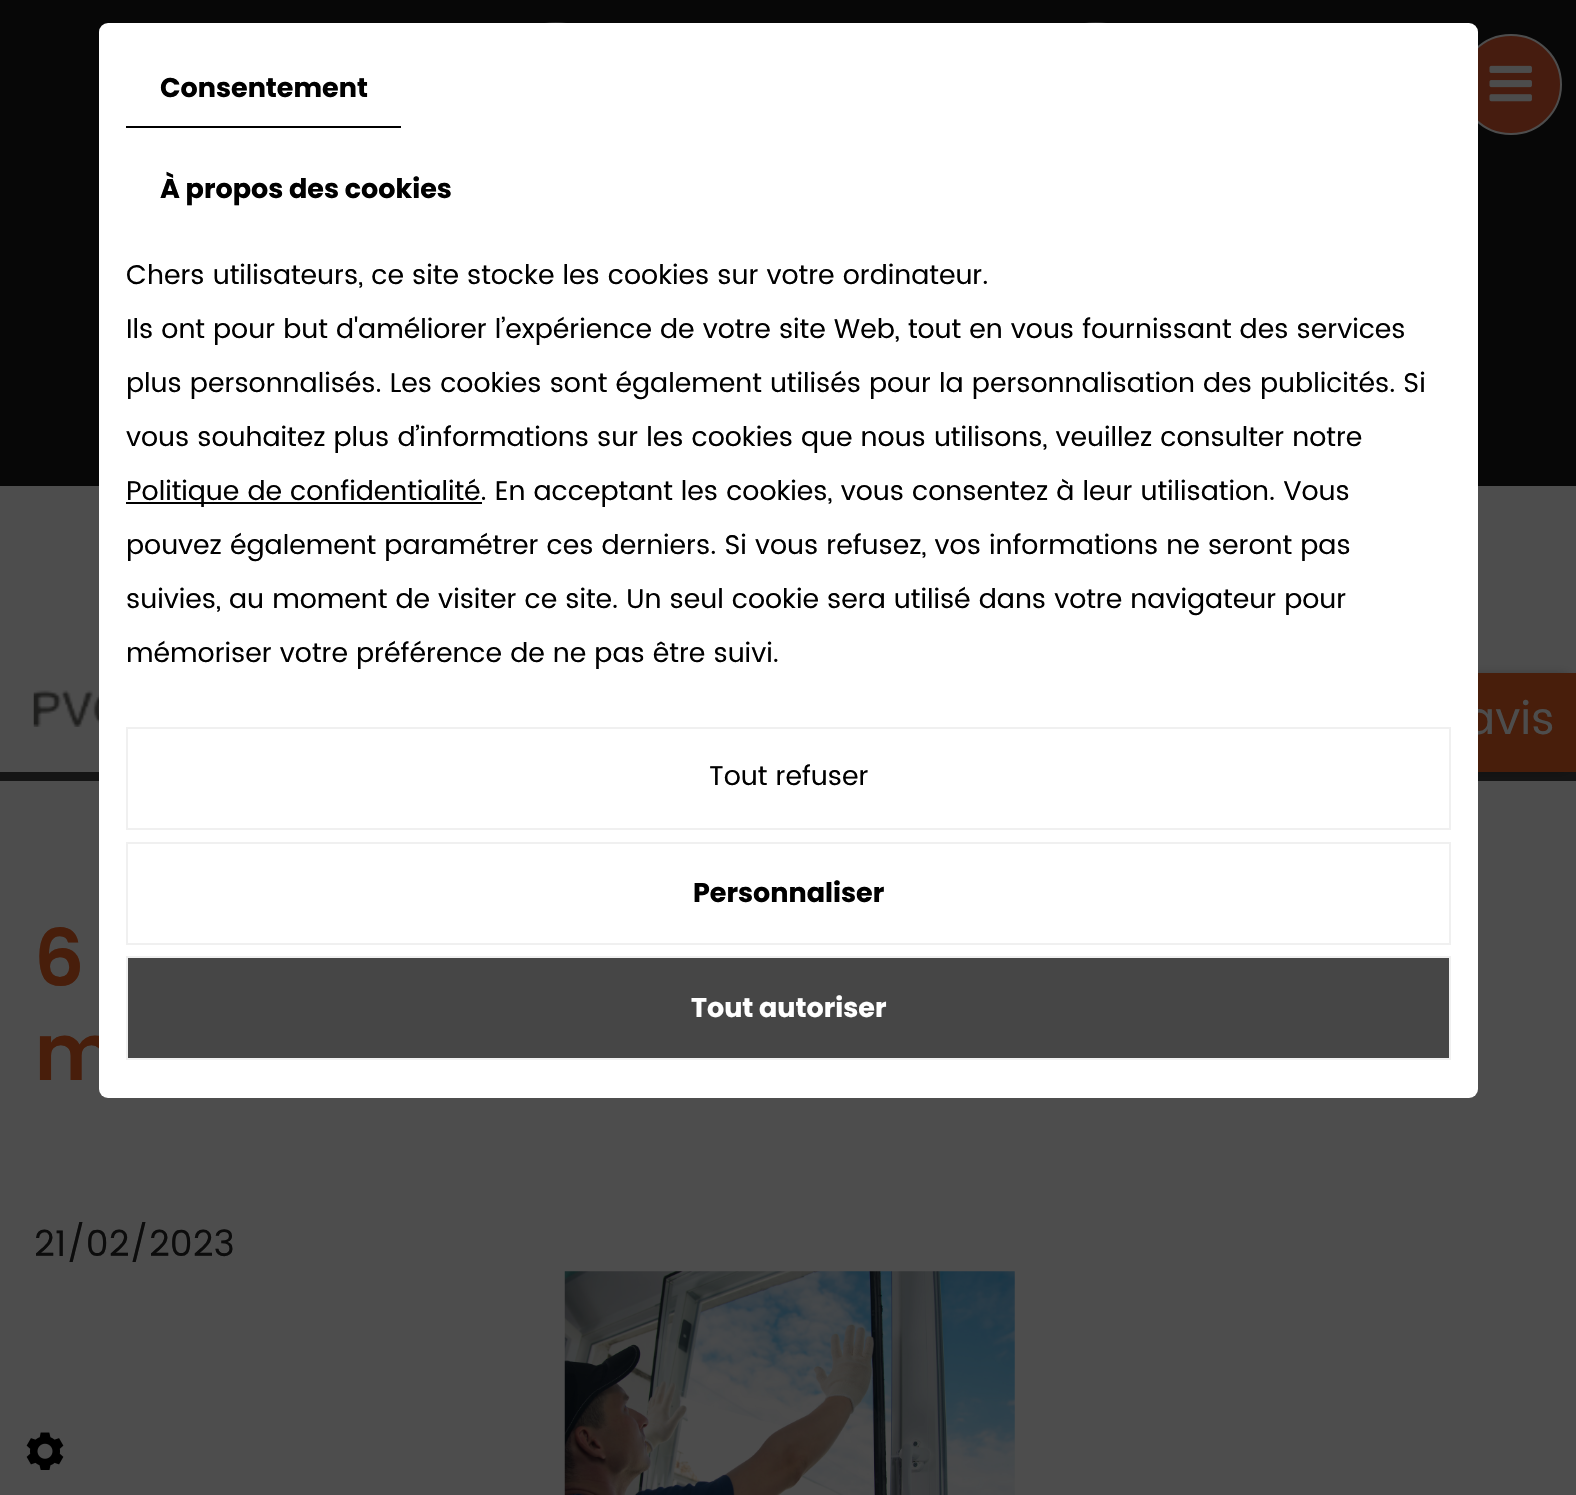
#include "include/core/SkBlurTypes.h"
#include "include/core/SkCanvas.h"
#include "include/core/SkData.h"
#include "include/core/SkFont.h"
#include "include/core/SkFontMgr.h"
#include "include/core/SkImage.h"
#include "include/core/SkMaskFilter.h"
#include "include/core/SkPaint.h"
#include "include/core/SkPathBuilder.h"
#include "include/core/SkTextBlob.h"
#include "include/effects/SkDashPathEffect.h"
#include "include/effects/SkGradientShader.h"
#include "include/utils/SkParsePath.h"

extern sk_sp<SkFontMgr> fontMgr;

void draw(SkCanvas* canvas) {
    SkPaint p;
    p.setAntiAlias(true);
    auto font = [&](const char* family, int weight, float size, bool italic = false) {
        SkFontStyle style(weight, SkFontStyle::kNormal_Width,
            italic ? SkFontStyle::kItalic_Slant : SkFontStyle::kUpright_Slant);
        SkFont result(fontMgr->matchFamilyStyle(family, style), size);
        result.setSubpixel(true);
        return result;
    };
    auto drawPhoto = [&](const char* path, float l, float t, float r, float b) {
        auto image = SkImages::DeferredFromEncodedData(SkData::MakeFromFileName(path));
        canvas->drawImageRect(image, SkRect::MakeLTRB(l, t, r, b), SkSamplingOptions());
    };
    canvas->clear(0xFF4D4D4D);
    p.setColor(0xFF070707);
    canvas->drawRect(SkRect::MakeLTRB(0, 0, 1576, 486), p);
    p.setColor(0xFF151515);
    canvas->drawRect(SkRect::MakeLTRB(0, 772, 1576, 781), p);
    p.setColor(0xFF461C0F);
    canvas->drawRoundRect(SkRect::MakeLTRB(1461, 35, 1561, 134), 49.5f, 49.5f, p);
    p.setStyle(SkPaint::kStroke_Style);
    p.setStrokeWidth(2);
    p.setColor(0xFF4D4D4D);
    canvas->drawRoundRect(SkRect::MakeLTRB(1461, 35, 1561, 134), 49.5f, 49.5f, p);
    p.setStyle(SkPaint::kFill_Style);
    p.setColor(0x33000000);
    p.setMaskFilter(SkMaskFilter::MakeBlur(kNormal_SkBlurStyle, 4.5f));
    canvas->drawRoundRect(SkRect::MakeLTRB(1204, 673, 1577, 772), 18, 18, p);
    p.setMaskFilter(nullptr);
    p.setColor(0xFF481E0B);
    canvas->drawRect(SkRect::MakeLTRB(1478, 673, 1576, 772), p);
    auto font1 = font("Poppins", 400, 45);
    p.setColor(0xFF4D4D4D);
    canvas->drawString("avis", 1465, 734, font1, p);
    auto font2 = font("Poppins", 600, 79);
    p.setColor(0xFF481E0B);
    canvas->drawString("m", 34, 1080, font2, p);
    p.setColor(0xFFFFFFFF);
    canvas->drawRoundRect(SkRect::MakeLTRB(99, 23, 1478, 1098), 9, 9, p);
    p.setColor(0xFF000000);
    canvas->drawRect(SkRect::MakeLTRB(126, 126, 401, 128), p);
    auto font3 = font("Poppins", 700, 27);
    canvas->drawString("Consentement", 160, 97, font3, p);
    canvas->drawString("À propos des cookies", 160, 198, font3, p);
    auto font4 = font("Poppins", 400, 27);
    {
        const struct { const char* s; float x, y; } items[] = {
            {"Chers utilisateurs, ce site stocke les cookies sur votre ordinateur.", 126, 284},
            {"Ils ont pour but d'améliorer l’expérience de votre site Web, tout en vous fournissant des services", 126, 338},
            {"plus personnalisés. Les cookies sont également utilisés pour la personnalisation des publicités. Si", 126, 392},
            {"vous souhaitez plus d’informations sur les cookies que nous utilisons, veuillez consulter notre", 126, 446},
        };
        for (auto [s, x, y] : items) {
            canvas->drawString(s, x, y, font4, p);
        }
    }
    canvas->drawRect(SkRect::MakeLTRB(126, 502, 482, 504), p);
    {
        const struct { const char* s; float x, y; } items[] = {
            {"Politique de confidentialité. En acceptant les cookies, vous consentez à leur utilisation. Vous", 126, 500},
            {"pouvez également paramétrer ces derniers. Si vous refusez, vos informations ne seront pas", 126, 554},
            {"suivies, au moment de visiter ce site. Un seul cookie sera utilisé dans votre navigateur pour", 126, 608},
            {"mémoriser votre préférence de ne pas être suivi.", 126, 662},
        };
        for (auto [s, x, y] : items) {
            canvas->drawString(s, x, y, font4, p);
        }
    }
    p.setStyle(SkPaint::kStroke_Style);
    p.setColor(0xFFF0F0F0);
    canvas->drawRect(SkRect::MakeLTRB(127, 728, 1450, 829), p);
    p.setStyle(SkPaint::kFill_Style);
    p.setColor(0xFF000000);
    canvas->drawString("Tout refuser", 709, 785, font4, p);
    p.setStyle(SkPaint::kStroke_Style);
    p.setColor(0xFFF0F0F0);
    canvas->drawRect(SkRect::MakeLTRB(127, 843, 1450, 944), p);
    p.setStyle(SkPaint::kFill_Style);
    p.setColor(0xFF000000);
    canvas->drawString("Personnaliser", 693, 902, font3, p);
    p.setColor(0xFF464646);
    canvas->drawRect(SkRect::MakeLTRB(127, 957, 1450, 1059), p);
    p.setStyle(SkPaint::kStroke_Style);
    p.setColor(0xFFF0F0F0);
    canvas->drawRect(SkRect::MakeLTRB(127, 957, 1450, 1059), p);
    p.setStyle(SkPaint::kFill_Style);
    p.setColor(0xFFFFFFFF);
    canvas->drawString("Tout autoriser", 691, 1017, font3, p);
    drawPhoto("media/1.png", 545, 22, 567, 23);
    drawPhoto("media/2.png", 1085, 22, 1107, 23);
    drawPhoto("media/3.png", 1489, 65, 1532, 102);
    drawPhoto("media/4.png", 33, 690, 99, 727);
    p.setColor(0xFF481E0B);
    canvas->drawString("6", 34, 986, font2, p);
    auto font5 = font("Poppins", 400, 36);
    p.setColor(0xFF0C0C0C);
    canvas->drawString("21/02/2023", 34, 1256, font5, p);
    drawPhoto("media/5.png", 564, 1271, 1015, 1495);
    drawPhoto("media/6.png", 26, 1432, 64, 1470);
}
